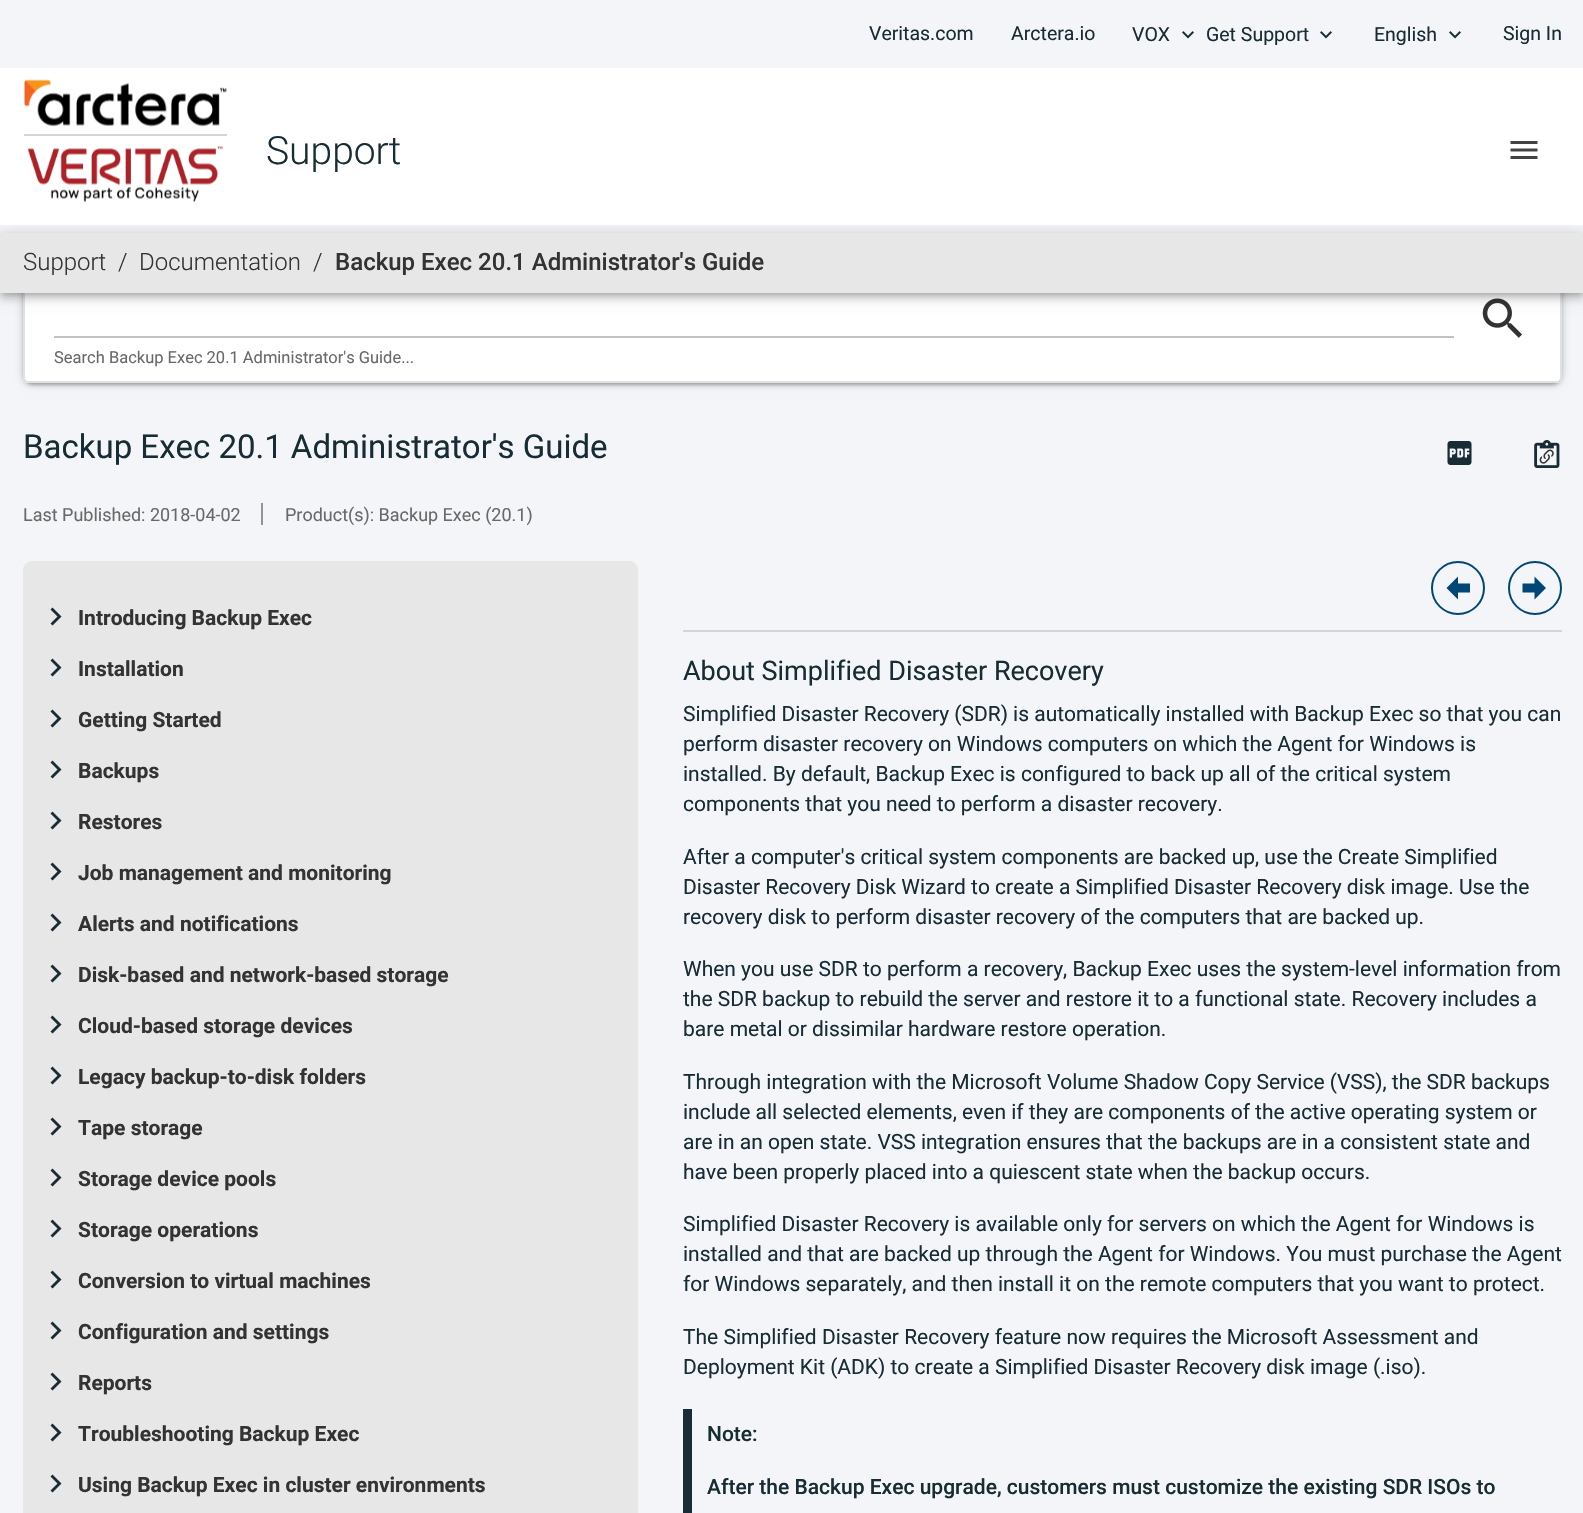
#include "include/core/SkBlurTypes.h"
#include "include/core/SkCanvas.h"
#include "include/core/SkData.h"
#include "include/core/SkFont.h"
#include "include/core/SkFontMgr.h"
#include "include/core/SkImage.h"
#include "include/core/SkMaskFilter.h"
#include "include/core/SkPaint.h"
#include "include/core/SkPathBuilder.h"
#include "include/core/SkTextBlob.h"
#include "include/effects/SkDashPathEffect.h"
#include "include/effects/SkGradientShader.h"
#include "include/utils/SkParsePath.h"

extern sk_sp<SkFontMgr> fontMgr;

void draw(SkCanvas* canvas) {
    SkPaint p;
    p.setAntiAlias(true);
    auto font = [&](const char* family, int weight, float size, bool italic = false) {
        SkFontStyle style(weight, SkFontStyle::kNormal_Width,
            italic ? SkFontStyle::kItalic_Slant : SkFontStyle::kUpright_Slant);
        SkFont result(fontMgr->matchFamilyStyle(family, style), size);
        result.setSubpixel(true);
        return result;
    };
    auto drawPhoto = [&](const char* path, float l, float t, float r, float b) {
        auto image = SkImages::DeferredFromEncodedData(SkData::MakeFromFileName(path));
        canvas->drawImageRect(image, SkRect::MakeLTRB(l, t, r, b), SkSamplingOptions());
    };
    canvas->clear(0xFFF4F5F8);
    auto font1 = font("Roboto", 400, 19.5f);
    p.setColor(0xFF182C35);
    {
        const struct { const char* s; float x, y; } items[] = {
            {"Veritas.com", 869, 40},
            {"Arctera.io", 1011, 40},
            {"VOX", 1132, 41},
        };
        for (auto [s, x, y] : items) {
            canvas->drawString(s, x, y, font1, p);
        }
    }
    drawPhoto("media/1.png", 1182, 31, 1194, 39);
    canvas->drawString("Get Support", 1206, 41, font1, p);
    drawPhoto("media/1.png", 1320, 31, 1332, 39);
    canvas->drawString("English", 1374, 41, font1, p);
    drawPhoto("media/1.png", 1449, 31, 1461, 39);
    canvas->drawString("Sign In", 1503, 40, font1, p);
    p.setColor(0x1F000000);
    p.setMaskFilter(SkMaskFilter::MakeBlur(kNormal_SkBlurStyle, 1));
    canvas->drawRoundRect(SkRect::MakeLTRB(26, 276, 1559, 384), 6, 6, p);
    p.setMaskFilter(nullptr);
    p.setColor(0x24000000);
    p.setMaskFilter(SkMaskFilter::MakeBlur(kNormal_SkBlurStyle, 1.5f));
    canvas->drawRoundRect(SkRect::MakeLTRB(23, 272, 1562, 386), 9, 9, p);
    p.setMaskFilter(nullptr);
    p.setColor(0x33000000);
    p.setMaskFilter(SkMaskFilter::MakeBlur(kNormal_SkBlurStyle, 4));
    canvas->drawRoundRect(SkRect::MakeLTRB(23, 270, 1562, 384), 9, 9, p);
    p.setMaskFilter(nullptr);
    p.setColor(0xFFFFFFFF);
    canvas->drawRoundRect(SkRect::MakeLTRB(23, 269, 1562, 383), 9, 9, p);
    p.setStyle(SkPaint::kStroke_Style);
    p.setStrokeWidth(2);
    p.setColor(0xFFDEE2E6);
    canvas->drawRect(SkRect::MakeLTRB(24, 270, 1561, 382), p);
    drawPhoto("media/5.png", 1482, 298, 1522, 338);
    p.setStyle(SkPaint::kFill_Style);
    p.setColor(0x1F000000);
    p.setMaskFilter(SkMaskFilter::MakeBlur(kNormal_SkBlurStyle, 7.5f));
    canvas->drawRect(SkRect::MakeLTRB(0, 234, 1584, 294), p);
    p.setMaskFilter(nullptr);
    p.setColor(0xFFFFFFFF);
    canvas->drawRect(SkRect::MakeLTRB(0, 68, 1583, 225), p);
    drawPhoto("media/2.png", 24, 79, 227, 127);
    p.setColor(0xFFD5D5D5);
    canvas->drawRect(SkRect::MakeLTRB(24, 134, 227, 136), p);
    drawPhoto("media/3.png", 27, 146, 223, 202);
    auto font2 = font("Roboto", 300, 39);
    p.setColor(0xFF182C35);
    canvas->drawString("Support", 266, 164, font2, p);
    drawPhoto("media/4.png", 1510, 141, 1538, 159);
    p.setColor(0x24000000);
    p.setMaskFilter(SkMaskFilter::MakeBlur(kNormal_SkBlurStyle, 4));
    canvas->drawRect(SkRect::MakeLTRB(0, 239, 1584, 299), p);
    p.setMaskFilter(nullptr);
    p.setColor(0x33000000);
    p.setMaskFilter(SkMaskFilter::MakeBlur(kNormal_SkBlurStyle, 3));
    canvas->drawRect(SkRect::MakeLTRB(2, 237, 1583, 294), p);
    p.setMaskFilter(nullptr);
    p.setColor(0xFFE7E7E7);
    canvas->drawRect(SkRect::MakeLTRB(0, 233, 1583, 293), p);
    auto font3 = font("Roboto", 300, 24);
    p.setColor(0xFF333333);
    {
        const struct { const char* s; float x, y; } items[] = {
            {"Support", 23, 270},
            {"/", 118, 270},
            {"Documentation", 139, 270},
            {"/", 313, 270},
        };
        for (auto [s, x, y] : items) {
            canvas->drawString(s, x, y, font3, p);
        }
    }
    auto font4 = font("Roboto", 500, 24);
    canvas->drawString("Backup Exec 20.1 Administrator's Guide", 335, 270, font4, p);
    p.setColor(0xFFC2C2C2);
    canvas->drawRect(SkRect::MakeLTRB(54, 336, 1454, 338), p);
    auto font5 = font("Roboto", 400, 16.5f);
    p.setColor(0xFF696969);
    canvas->drawString("Search Backup Exec 20.1 Administrator's Guide...", 54, 363, font5, p);
    auto font6 = font("Roboto", 400, 33);
    p.setColor(0xFF182C35);
    canvas->drawString("Backup Exec 20.1 Administrator's Guide", 23, 458, font6, p);
    drawPhoto("media/6.png", 1447, 441, 1472, 465);
    drawPhoto("media/7.png", 1534, 440, 1560, 468);
    drawPhoto("media/8.png", 1539, 449, 1554, 464);
    auto font7 = font("Roboto", 400, 18);
    p.setColor(0xFF696969);
    canvas->drawString("Last Published: 2018-04-02", 23, 521, font7, p);
    p.setColor(0xFF939393);
    canvas->drawRect(SkRect::MakeLTRB(261, 503, 263, 525), p);
    p.setColor(0xFF696969);
    canvas->drawString("Product(s): Backup Exec (20.1)", 285, 521, font7, p);
    p.setColor(0xFFE7E7E7);
    canvas->drawRoundRect(SkRect::MakeLTRB(23, 561, 638, 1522), 9, 9, p);
    p.setColor(0xFF182C35);
    canvas->drawPath(SkPathBuilder().moveTo(50.5f, 623.5f).lineTo(57.5f, 616.5f).lineTo(50.5f, 609.5f).lineTo(52.5f, 607.5f).lineTo(61.5f, 616.5f).lineTo(52.5f, 625.5f).close().detach(), p);
    auto font8 = font("Roboto", 700, 21);
    p.setColor(0xFF333333);
    canvas->drawString("Introducing Backup Exec", 78, 625, font8, p);
    p.setColor(0xFF182C35);
    canvas->drawPath(SkPathBuilder().moveTo(50.5f, 674.5f).lineTo(57.5f, 667.5f).lineTo(50.5f, 660.5f).lineTo(52.5f, 658.5f).lineTo(61.5f, 667.5f).lineTo(52.5f, 676.5f).close().detach(), p);
    p.setColor(0xFF333333);
    canvas->drawString("Installation", 78, 676, font8, p);
    p.setColor(0xFF182C35);
    canvas->drawPath(SkPathBuilder().moveTo(50.5f, 725.5f).lineTo(57.5f, 718.5f).lineTo(50.5f, 711.5f).lineTo(52.5f, 709.5f).lineTo(61.5f, 718.5f).lineTo(52.5f, 727.5f).close().detach(), p);
    p.setColor(0xFF333333);
    canvas->drawString("Getting Started", 78, 727, font8, p);
    p.setColor(0xFF182C35);
    canvas->drawPath(SkPathBuilder().moveTo(50.5f, 776.5f).lineTo(57.5f, 769.5f).lineTo(50.5f, 762.5f).lineTo(52.5f, 760.5f).lineTo(61.5f, 769.5f).lineTo(52.5f, 778.5f).close().detach(), p);
    p.setColor(0xFF333333);
    canvas->drawString("Backups", 78, 778, font8, p);
    p.setColor(0xFF182C35);
    canvas->drawPath(SkPathBuilder().moveTo(50.5f, 827.5f).lineTo(57.5f, 820.5f).lineTo(50.5f, 813.5f).lineTo(52.5f, 811.5f).lineTo(61.5f, 820.5f).lineTo(52.5f, 829.5f).close().detach(), p);
    p.setColor(0xFF333333);
    canvas->drawString("Restores", 78, 829, font8, p);
    p.setColor(0xFF182C35);
    canvas->drawPath(SkPathBuilder().moveTo(50.5f, 878.5f).lineTo(57.5f, 871.5f).lineTo(50.5f, 864.5f).lineTo(52.5f, 862.5f).lineTo(61.5f, 871.5f).lineTo(52.5f, 880.5f).close().detach(), p);
    p.setColor(0xFF333333);
    canvas->drawString("Job management and monitoring", 78, 880, font8, p);
    p.setColor(0xFF182C35);
    canvas->drawPath(SkPathBuilder().moveTo(50.5f, 929.5f).lineTo(57.5f, 922.5f).lineTo(50.5f, 915.5f).lineTo(52.5f, 913.5f).lineTo(61.5f, 922.5f).lineTo(52.5f, 931.5f).close().detach(), p);
    p.setColor(0xFF333333);
    canvas->drawString("Alerts and notifications", 78, 931, font8, p);
    p.setColor(0xFF182C35);
    canvas->drawPath(SkPathBuilder().moveTo(50.5f, 980.5f).lineTo(57.5f, 973.5f).lineTo(50.5f, 966.5f).lineTo(52.5f, 964.5f).lineTo(61.5f, 973.5f).lineTo(52.5f, 982.5f).close().detach(), p);
    p.setColor(0xFF333333);
    canvas->drawString("Disk-based and network-based storage", 78, 982, font8, p);
    p.setColor(0xFF182C35);
    canvas->drawPath(SkPathBuilder().moveTo(50.5f, 1031.5f).lineTo(57.5f, 1024.5f).lineTo(50.5f, 1017.5f).lineTo(52.5f, 1015.5f).lineTo(61.5f, 1024.5f).lineTo(52.5f, 1033.5f).close().detach(), p);
    p.setColor(0xFF333333);
    canvas->drawString("Cloud-based storage devices", 78, 1033, font8, p);
    p.setColor(0xFF182C35);
    canvas->drawPath(SkPathBuilder().moveTo(50.5f, 1082.5f).lineTo(57.5f, 1075.5f).lineTo(50.5f, 1068.5f).lineTo(52.5f, 1066.5f).lineTo(61.5f, 1075.5f).lineTo(52.5f, 1084.5f).close().detach(), p);
    p.setColor(0xFF333333);
    canvas->drawString("Legacy backup-to-disk folders", 78, 1084, font8, p);
    p.setColor(0xFF182C35);
    canvas->drawPath(SkPathBuilder().moveTo(50.5f, 1133.5f).lineTo(57.5f, 1126.5f).lineTo(50.5f, 1119.5f).lineTo(52.5f, 1117.5f).lineTo(61.5f, 1126.5f).lineTo(52.5f, 1135.5f).close().detach(), p);
    p.setColor(0xFF333333);
    canvas->drawString("Tape storage", 78, 1135, font8, p);
    p.setColor(0xFF182C35);
    canvas->drawPath(SkPathBuilder().moveTo(50.5f, 1184.5f).lineTo(57.5f, 1177.5f).lineTo(50.5f, 1170.5f).lineTo(52.5f, 1168.5f).lineTo(61.5f, 1177.5f).lineTo(52.5f, 1186.5f).close().detach(), p);
    p.setColor(0xFF333333);
    canvas->drawString("Storage device pools", 78, 1186, font8, p);
    p.setColor(0xFF182C35);
    canvas->drawPath(SkPathBuilder().moveTo(50.5f, 1235.5f).lineTo(57.5f, 1228.5f).lineTo(50.5f, 1221.5f).lineTo(52.5f, 1219.5f).lineTo(61.5f, 1228.5f).lineTo(52.5f, 1237.5f).close().detach(), p);
    p.setColor(0xFF333333);
    canvas->drawString("Storage operations", 78, 1237, font8, p);
    p.setColor(0xFF182C35);
    canvas->drawPath(SkPathBuilder().moveTo(50.5f, 1286.5f).lineTo(57.5f, 1279.5f).lineTo(50.5f, 1272.5f).lineTo(52.5f, 1270.5f).lineTo(61.5f, 1279.5f).lineTo(52.5f, 1288.5f).close().detach(), p);
    p.setColor(0xFF333333);
    canvas->drawString("Conversion to virtual machines", 78, 1288, font8, p);
    p.setColor(0xFF182C35);
    canvas->drawPath(SkPathBuilder().moveTo(50.5f, 1337.5f).lineTo(57.5f, 1330.5f).lineTo(50.5f, 1323.5f).lineTo(52.5f, 1321.5f).lineTo(61.5f, 1330.5f).lineTo(52.5f, 1339.5f).close().detach(), p);
    p.setColor(0xFF333333);
    canvas->drawString("Configuration and settings", 78, 1339, font8, p);
    p.setColor(0xFF182C35);
    canvas->drawPath(SkPathBuilder().moveTo(50.5f, 1388.5f).lineTo(57.5f, 1381.5f).lineTo(50.5f, 1374.5f).lineTo(52.5f, 1372.5f).lineTo(61.5f, 1381.5f).lineTo(52.5f, 1390.5f).close().detach(), p);
    p.setColor(0xFF333333);
    canvas->drawString("Reports", 78, 1390, font8, p);
    p.setColor(0xFF182C35);
    canvas->drawPath(SkPathBuilder().moveTo(50.5f, 1439.5f).lineTo(57.5f, 1432.5f).lineTo(50.5f, 1425.5f).lineTo(52.5f, 1423.5f).lineTo(61.5f, 1432.5f).lineTo(52.5f, 1441.5f).close().detach(), p);
    p.setColor(0xFF333333);
    canvas->drawString("Troubleshooting Backup Exec", 78, 1441, font8, p);
    p.setColor(0xFF182C35);
    canvas->drawPath(SkPathBuilder().moveTo(50.5f, 1490.5f).lineTo(57.5f, 1483.5f).lineTo(50.5f, 1476.5f).lineTo(52.5f, 1474.5f).lineTo(61.5f, 1483.5f).lineTo(52.5f, 1492.5f).close().detach(), p);
    p.setColor(0xFF333333);
    canvas->drawString("Using Backup Exec in cluster environments", 78, 1492, font8, p);
    p.setColor(0xFFD5D5D5);
    canvas->drawRect(SkRect::MakeLTRB(683, 630, 1562, 632), p);
    p.setStyle(SkPaint::kStroke_Style);
    p.setColor(0xFF004677);
    canvas->drawCircle(1458, 588, 26, p);
    p.setStyle(SkPaint::kFill_Style);
    canvas->drawPath(SkPathBuilder().moveTo(1470, 583.5f).lineTo(1470, 592.5f).lineTo(1458, 592.5f).lineTo(1458, 599.5f).lineTo(1446.5f, 588).lineTo(1458, 576.5f).lineTo(1458, 583.5f).close().detach(), p);
    p.setStyle(SkPaint::kStroke_Style);
    canvas->drawCircle(1535, 588, 26, p);
    p.setStyle(SkPaint::kFill_Style);
    canvas->drawPath(SkPathBuilder().moveTo(1522.5f, 592.5f).lineTo(1522.5f, 583.5f).lineTo(1534.5f, 583.5f).lineTo(1534.5f, 576.5f).lineTo(1546, 588).lineTo(1534.5f, 599.5f).lineTo(1534.5f, 592.5f).close().detach(), p);
    auto font9 = font("Roboto", 400, 27);
    p.setColor(0xFF182C35);
    canvas->drawString("About Simplified Disaster Recovery", 683, 680, font9, p);
    auto font10 = font("Roboto", 400, 21);
    {
        const struct { const char* s; float x, y; } items[] = {
            {"Simplified Disaster Recovery (SDR) is automatically installed with Backup Exec so that you can", 683, 721},
            {"perform disaster recovery on Windows computers on which the Agent for Windows is", 683, 751},
            {"installed. By default, Backup Exec is configured to back up all of the critical system", 683, 781},
            {"components that you need to perform a disaster recovery.", 683, 811},
            {"After a computer's critical system components are backed up, use the Create Simplified", 683, 864},
            {"Disaster Recovery Disk Wizard to create a Simplified Disaster Recovery disk image. Use the", 683, 894},
            {"recovery disk to perform disaster recovery of the computers that are backed up.", 683, 924},
            {"When you use SDR to perform a recovery, Backup Exec uses the system-level information from", 683, 976},
            {"the SDR backup to rebuild the server and restore it to a functional state. Recovery includes a", 683, 1006},
            {"bare metal or dissimilar hardware restore operation.", 683, 1036},
            {"Through integration with the Microsoft Volume Shadow Copy Service (VSS), the SDR backups", 683, 1089},
            {"include all selected elements, even if they are components of the active operating system or", 683, 1119},
            {"are in an open state. VSS integration ensures that the backups are in a consistent state and", 683, 1149},
            {"have been properly placed into a quiescent state when the backup occurs.", 683, 1179},
            {"Simplified Disaster Recovery is available only for servers on which the Agent for Windows is", 683, 1231},
            {"installed and that are backed up through the Agent for Windows. You must purchase the Agent", 683, 1261},
            {"for Windows separately, and then install it on the remote computers that you want to protect.", 683, 1291},
            {"The Simplified Disaster Recovery feature now requires the Microsoft Assessment and", 683, 1344},
            {"Deployment Kit (ADK) to create a Simplified Disaster Recovery disk image (.iso).", 683, 1374},
        };
        for (auto [s, x, y] : items) {
            canvas->drawString(s, x, y, font10, p);
        }
    }
    canvas->drawRect(SkRect::MakeLTRB(683, 1409, 692, 1513), p);
    auto font11 = font("Roboto", 500, 21);
    canvas->drawString("Note:", 707, 1441, font11, p);
    canvas->drawString("After the Backup Exec upgrade, customers must customize the existing SDR ISOs to", 707, 1494, font11, p);
}
